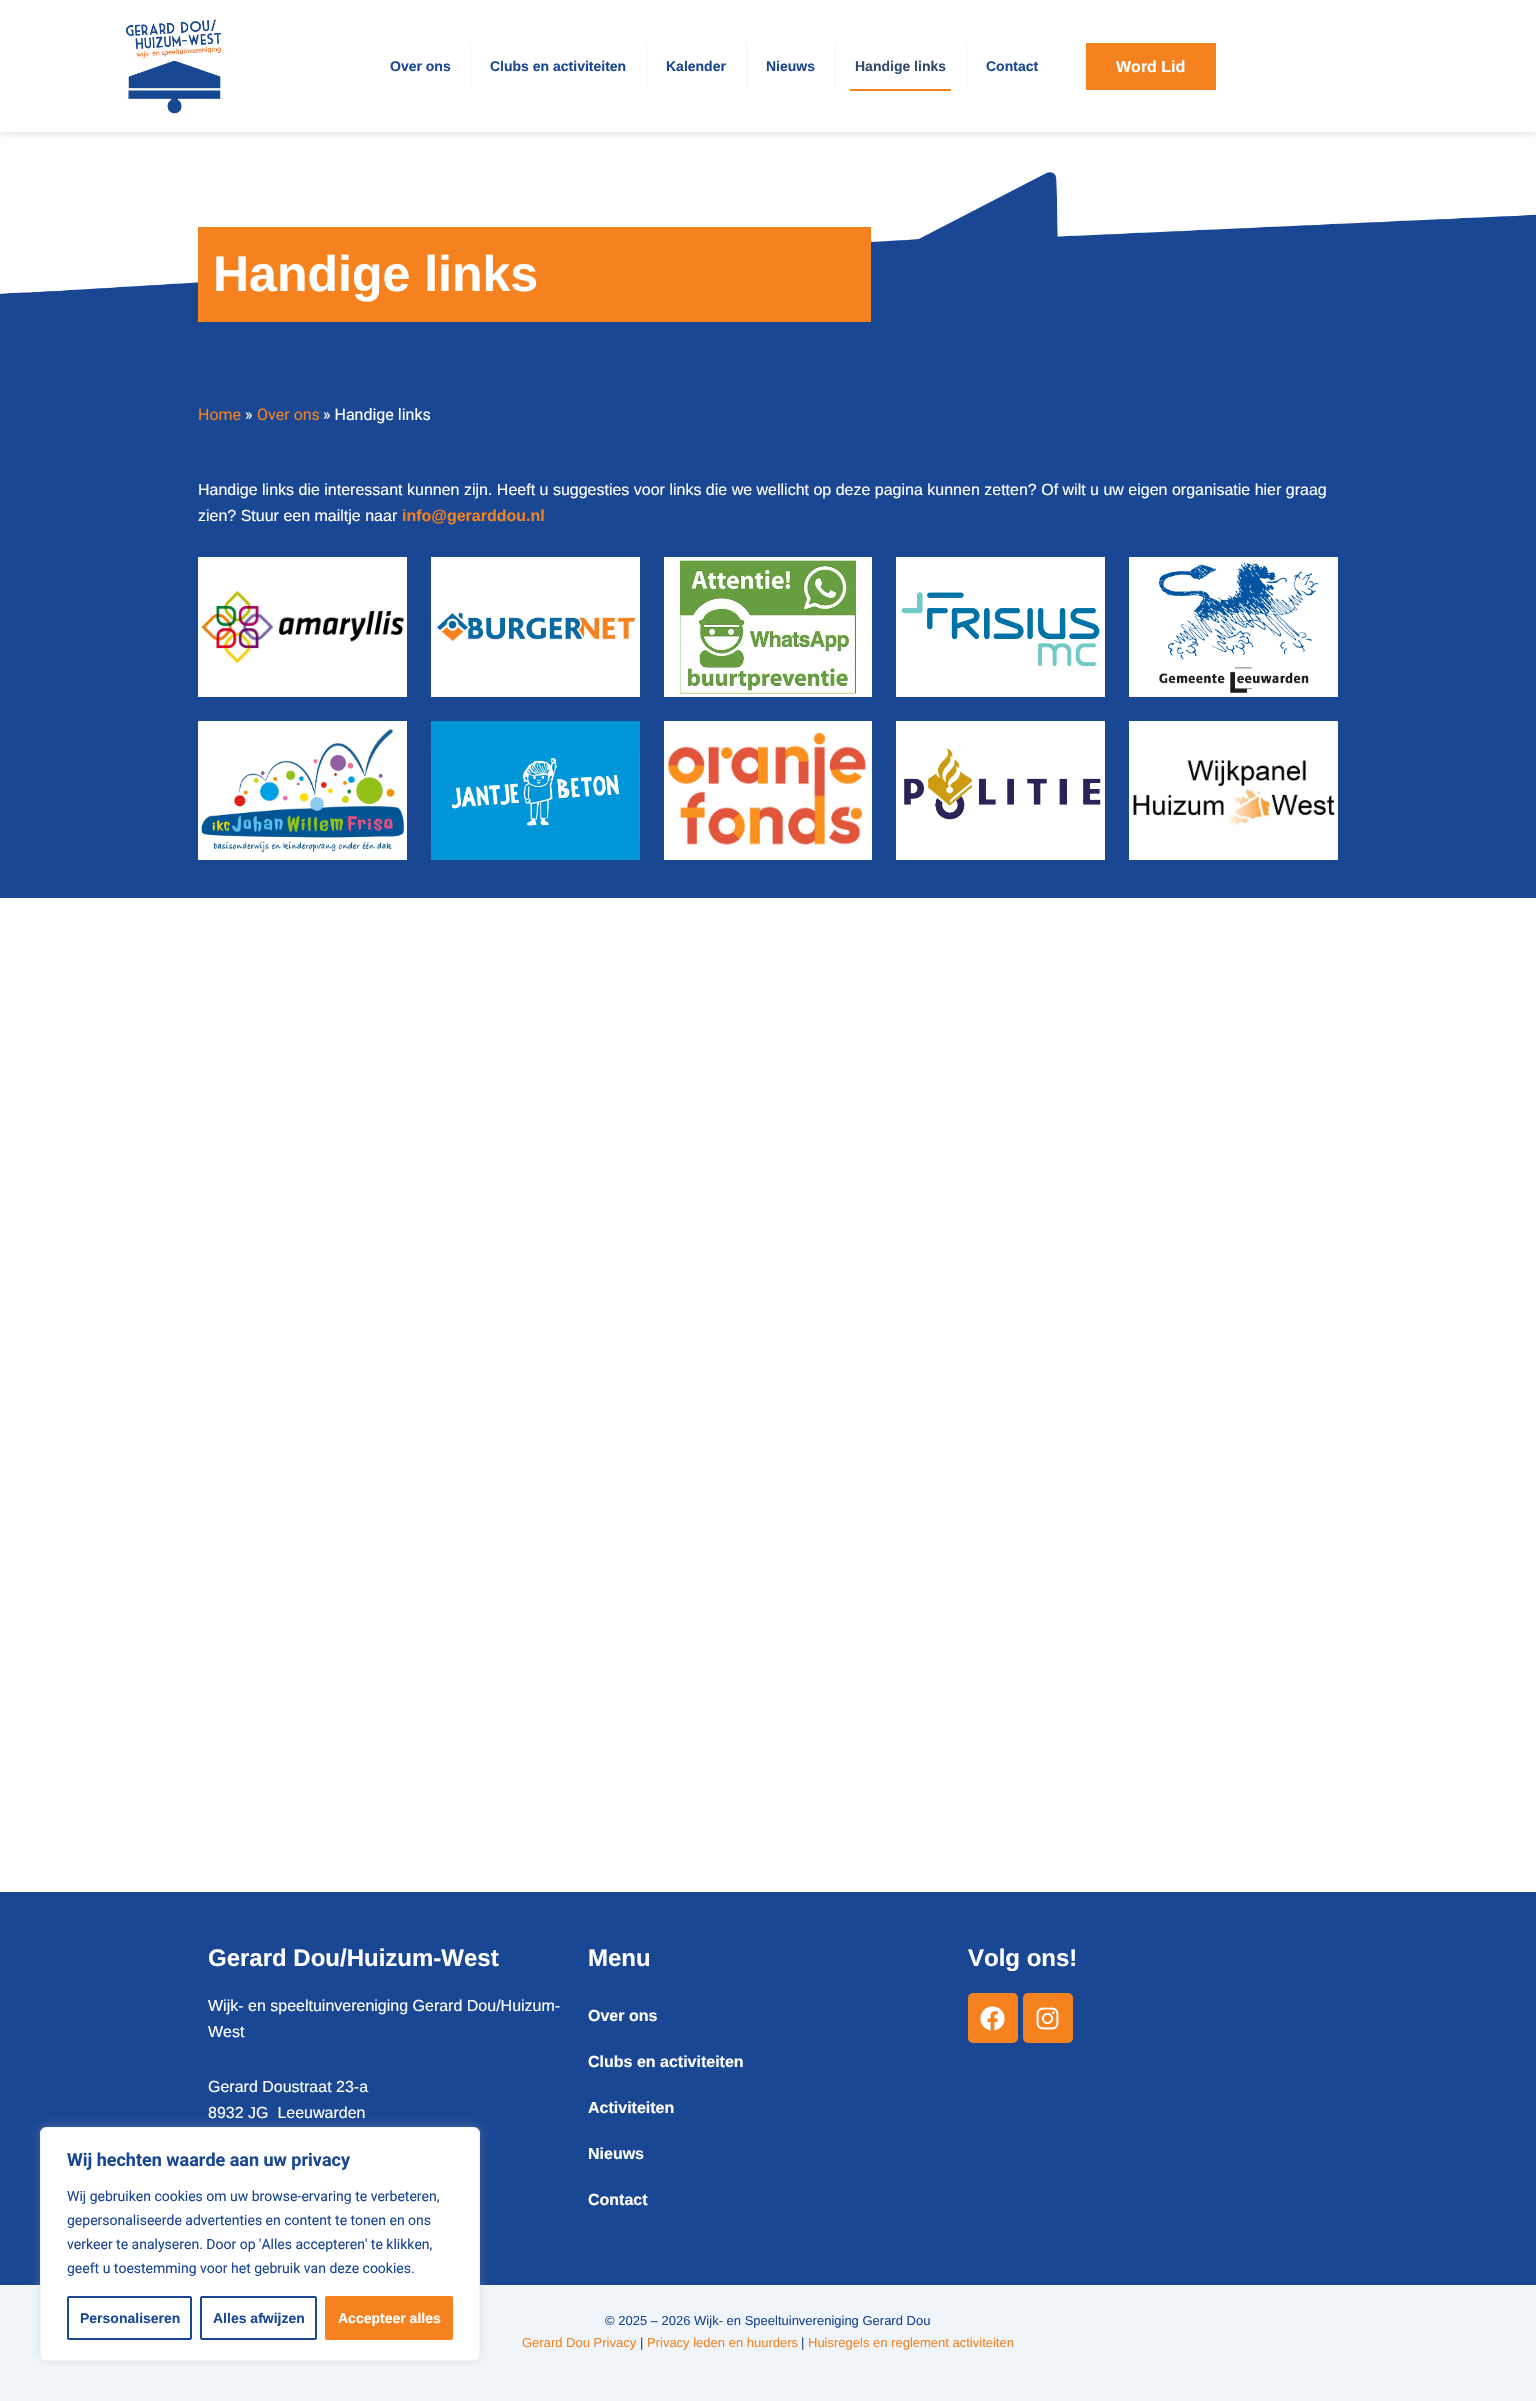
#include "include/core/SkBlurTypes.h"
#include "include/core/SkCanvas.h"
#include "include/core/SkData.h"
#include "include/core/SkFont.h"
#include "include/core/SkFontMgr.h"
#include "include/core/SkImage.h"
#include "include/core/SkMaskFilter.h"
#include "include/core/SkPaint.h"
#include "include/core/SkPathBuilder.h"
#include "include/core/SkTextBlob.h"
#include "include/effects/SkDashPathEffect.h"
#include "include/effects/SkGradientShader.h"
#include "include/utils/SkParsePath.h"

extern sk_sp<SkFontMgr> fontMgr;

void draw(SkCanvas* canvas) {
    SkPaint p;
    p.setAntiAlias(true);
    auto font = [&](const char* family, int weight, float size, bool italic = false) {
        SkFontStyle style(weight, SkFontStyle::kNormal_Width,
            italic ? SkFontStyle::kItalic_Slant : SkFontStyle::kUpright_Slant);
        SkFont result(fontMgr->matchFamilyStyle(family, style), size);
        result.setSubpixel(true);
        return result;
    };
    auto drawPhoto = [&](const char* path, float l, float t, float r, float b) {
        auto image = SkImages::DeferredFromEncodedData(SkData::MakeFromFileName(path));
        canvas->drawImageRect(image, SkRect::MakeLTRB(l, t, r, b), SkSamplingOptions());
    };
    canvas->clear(0xFFFFFFFF);
    drawPhoto("media/2.png", 0, 127, 1536, 294);
    canvas->save();
    canvas->clipRect(SkRect::MakeLTRB(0, 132, 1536, 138));
    p.setColor(0x26000000);
    p.setMaskFilter(SkMaskFilter::MakeBlur(kNormal_SkBlurStyle, 5));
    canvas->drawRect(SkRect::MakeLTRB(0, 0, 1536, 132), p);
    p.setMaskFilter(nullptr);
    canvas->restore();
    drawPhoto("media/1.png", 126, 19, 221, 114);
    auto font1 = font("Liberation Sans", 700, 14);
    p.setColor(0xFF1A4793);
    canvas->drawString("Over ons", 390, 71, font1, p);
    p.setColor(0xFFF0F5FA);
    canvas->drawRect(SkRect::MakeLTRB(470, 41, 471, 91), p);
    p.setColor(0xFF1A4793);
    canvas->drawString("Clubs en activiteiten", 490, 71, font1, p);
    p.setColor(0xFFF0F5FA);
    canvas->drawRect(SkRect::MakeLTRB(646, 41, 647, 91), p);
    p.setColor(0xFF1A4793);
    canvas->drawString("Kalender", 666, 71, font1, p);
    p.setColor(0xFFF0F5FA);
    canvas->drawRect(SkRect::MakeLTRB(746, 41, 747, 91), p);
    p.setColor(0xFF1A4793);
    canvas->drawString("Nieuws", 766, 71, font1, p);
    p.setColor(0xFFF0F5FA);
    canvas->drawRect(SkRect::MakeLTRB(835, 41, 836, 91), p);
    p.setColor(0xFF324A6D);
    canvas->drawString("Handige links", 855, 71, font1, p);
    p.setColor(0xFFF5821F);
    canvas->drawRect(SkRect::MakeLTRB(850, 89, 951, 91), p);
    p.setColor(0xFFF0F5FA);
    canvas->drawRect(SkRect::MakeLTRB(966, 41, 967, 91), p);
    p.setColor(0xFF1A4793);
    canvas->drawString("Contact", 986, 71, font1, p);
    p.setColor(0xFFF5821F);
    canvas->drawRect(SkRect::MakeLTRB(1086, 43, 1216, 90), p);
    auto font2 = font("Liberation Sans", 700, 16);
    p.setColor(0xFFFFFFFF);
    canvas->drawString("Word Lid", 1116, 72, font2, p);
    p.setColor(0xFF1A4793);
    canvas->drawRect(SkRect::MakeLTRB(0, 294, 1536, 898), p);
    p.setColor(0xFFF5821F);
    canvas->drawRect(SkRect::MakeLTRB(198, 227, 871, 322), p);
    auto font3 = font("Liberation Sans", 700, 50);
    p.setColor(0xFFFFFFFF);
    canvas->drawString("Handige links", 213, 291, font3, p);
    auto font4 = font("Roboto", 400, 16);
    p.setColor(0xFFF5821F);
    canvas->drawString("Home", 198, 420, font4, p);
    p.setColor(0xFFFFFFFF);
    canvas->drawString("»", 245, 420, font4, p);
    p.setColor(0xFFF5821F);
    canvas->drawString("Over ons", 257, 420, font4, p);
    p.setColor(0xFFFFFFFF);
    canvas->drawString("» Handige links", 323, 420, font4, p);
    auto font5 = font("Liberation Sans", 400, 16);
    canvas->drawString("Handige links die interessant kunnen zijn. Heeft u suggesties voor links die we wellicht op deze pagina kunnen zetten? Of wilt u uw eigen organisatie hier graag", 198, 495, font5, p);
    canvas->drawString("zien? Stuur een mailtje naar", 198, 521, font5, p);
    p.setColor(0xFFF5821F);
    canvas->drawString("info@gerarddou.nl", 402, 521, font2, p);
    drawPhoto("media/3.png", 198, 557, 407, 697);
    drawPhoto("media/4.png", 431, 557, 640, 697);
    drawPhoto("media/5.png", 664, 557, 872, 697);
    drawPhoto("media/6.png", 896, 557, 1105, 697);
    drawPhoto("media/7.png", 1129, 557, 1338, 697);
    drawPhoto("media/8.png", 198, 721, 407, 860);
    drawPhoto("media/9.png", 431, 721, 640, 860);
    drawPhoto("media/10.png", 664, 721, 872, 860);
    drawPhoto("media/11.png", 896, 721, 1105, 860);
    drawPhoto("media/12.png", 1129, 721, 1338, 860);
    p.setColor(0xFF1A4793);
    canvas->drawRect(SkRect::MakeLTRB(0, 1892, 1536, 2285), p);
    auto font6 = font("Liberation Sans", 700, 24);
    p.setColor(0xFFFFFFFF);
    {
        const struct { const char* s; float x, y; } items[] = {
            {"Gerard Dou/Huizum-West", 208, 1966},
            {"Menu", 588, 1966},
            {"Volg ons!", 968, 1966},
        };
        for (auto [s, x, y] : items) {
            canvas->drawString(s, x, y, font6, p);
        }
    }
    {
        const struct { const char* s; float x, y; } items[] = {
            {"Wijk- en speeltuinvereniging Gerard Dou/Huizum-", 208, 2011},
            {"West", 208, 2037},
            {"Gerard Doustraat 23-a", 208, 2092},
            {"8932 JG  Leeuwarden", 208, 2118},
        };
        for (auto [s, x, y] : items) {
            canvas->drawString(s, x, y, font5, p);
        }
    }
    {
        const struct { const char* s; float x, y; } items[] = {
            {"Over ons", 588, 2021},
            {"Clubs en activiteiten", 588, 2067},
            {"Activiteiten", 588, 2113},
            {"Nieuws", 588, 2159},
            {"Contact", 588, 2205},
        };
        for (auto [s, x, y] : items) {
            canvas->drawString(s, x, y, font2, p);
        }
    }
    p.setColor(0xFFF5821F);
    canvas->drawRoundRect(SkRect::MakeLTRB(968, 1993, 1018, 2043), 5, 5, p);
    drawPhoto("media/13.png", 980, 2006, 1005, 2031);
    canvas->drawRoundRect(SkRect::MakeLTRB(1023, 1993, 1073, 2043), 5, 5, p);
    drawPhoto("media/14.png", 1036, 2007, 1059, 2030);
    p.setColor(0xFFF0F5FA);
    canvas->drawRect(SkRect::MakeLTRB(0, 2285, 1536, 2401), p);
    auto font7 = font("Liberation Sans", 400, 13);
    p.setColor(0xFF1A4793);
    canvas->drawString("© 2025 – 2026 Wijk- en Speeltuinvereniging Gerard Dou", 605, 2325, font7, p);
    p.setColor(0xFFF5821F);
    canvas->drawString("Gerard Dou Privacy", 522, 2347, font7, p);
    p.setColor(0xFF1A4793);
    canvas->drawString("|", 640, 2347, font7, p);
    p.setColor(0xFFF5821F);
    canvas->drawString("Privacy leden en huurders", 647, 2347, font7, p);
    p.setColor(0xFF1A4793);
    canvas->drawString("|", 801, 2347, font7, p);
    p.setColor(0xFFF5821F);
    canvas->drawString("Huisregels en reglement activiteiten", 808, 2347, font7, p);
    p.setColor(0x4DACABAB);
    p.setMaskFilter(SkMaskFilter::MakeBlur(kNormal_SkBlurStyle, 5));
    canvas->drawRoundRect(SkRect::MakeLTRB(40, 2126, 480, 2360), 6, 6, p);
    p.setMaskFilter(nullptr);
    p.setColor(0xFFFFFFFF);
    canvas->drawRoundRect(SkRect::MakeLTRB(40.5f, 2127.5f, 479.5f, 2360.5f), 5.5f, 5.5f, p);
    p.setStyle(SkPaint::kStroke_Style);
    p.setStrokeWidth(1);
    p.setColor(0xFFF4F4F4);
    canvas->drawRoundRect(SkRect::MakeLTRB(40.5f, 2127.5f, 479.5f, 2360.5f), 5.5f, 5.5f, p);
    auto font8 = font("Roboto", 700, 18);
    p.setStyle(SkPaint::kFill_Style);
    p.setColor(0xFF1A4793);
    canvas->drawString("Wij hechten waarde aan uw privacy", 67, 2166, font8, p);
    auto font9 = font("Roboto", 400, 14);
    {
        const struct { const char* s; float x, y; } items[] = {
            {"Wij gebruiken cookies om uw browse-ervaring te verbeteren,", 67, 2201},
            {"gepersonaliseerde advertenties en content te tonen en ons", 67, 2225},
            {"verkeer te analyseren. Door op 'Alles accepteren' te klikken,", 67, 2249},
            {"geeft u toestemming voor het gebruik van deze cookies.", 67, 2273},
        };
        for (auto [s, x, y] : items) {
            canvas->drawString(s, x, y, font9, p);
        }
    }
    p.setStyle(SkPaint::kStroke_Style);
    p.setStrokeWidth(2);
    canvas->drawRoundRect(SkRect::MakeLTRB(68, 2297, 191, 2339), 1, 1, p);
    p.setStyle(SkPaint::kFill_Style);
    canvas->drawString("Personaliseren", 80, 2323, font1, p);
    p.setStyle(SkPaint::kStroke_Style);
    canvas->drawRoundRect(SkRect::MakeLTRB(201, 2297, 316, 2339), 1, 1, p);
    p.setStyle(SkPaint::kFill_Style);
    canvas->drawString("Alles afwijzen", 213, 2323, font1, p);
    p.setColor(0xFFF5821F);
    canvas->drawRoundRect(SkRect::MakeLTRB(326, 2297, 452, 2339), 1, 1, p);
    p.setStyle(SkPaint::kStroke_Style);
    canvas->drawRoundRect(SkRect::MakeLTRB(326, 2297, 452, 2339), 1, 1, p);
    p.setStyle(SkPaint::kFill_Style);
    p.setColor(0xFFFFFFFF);
    canvas->drawString("Accepteer alles", 338, 2323, font1, p);
}
